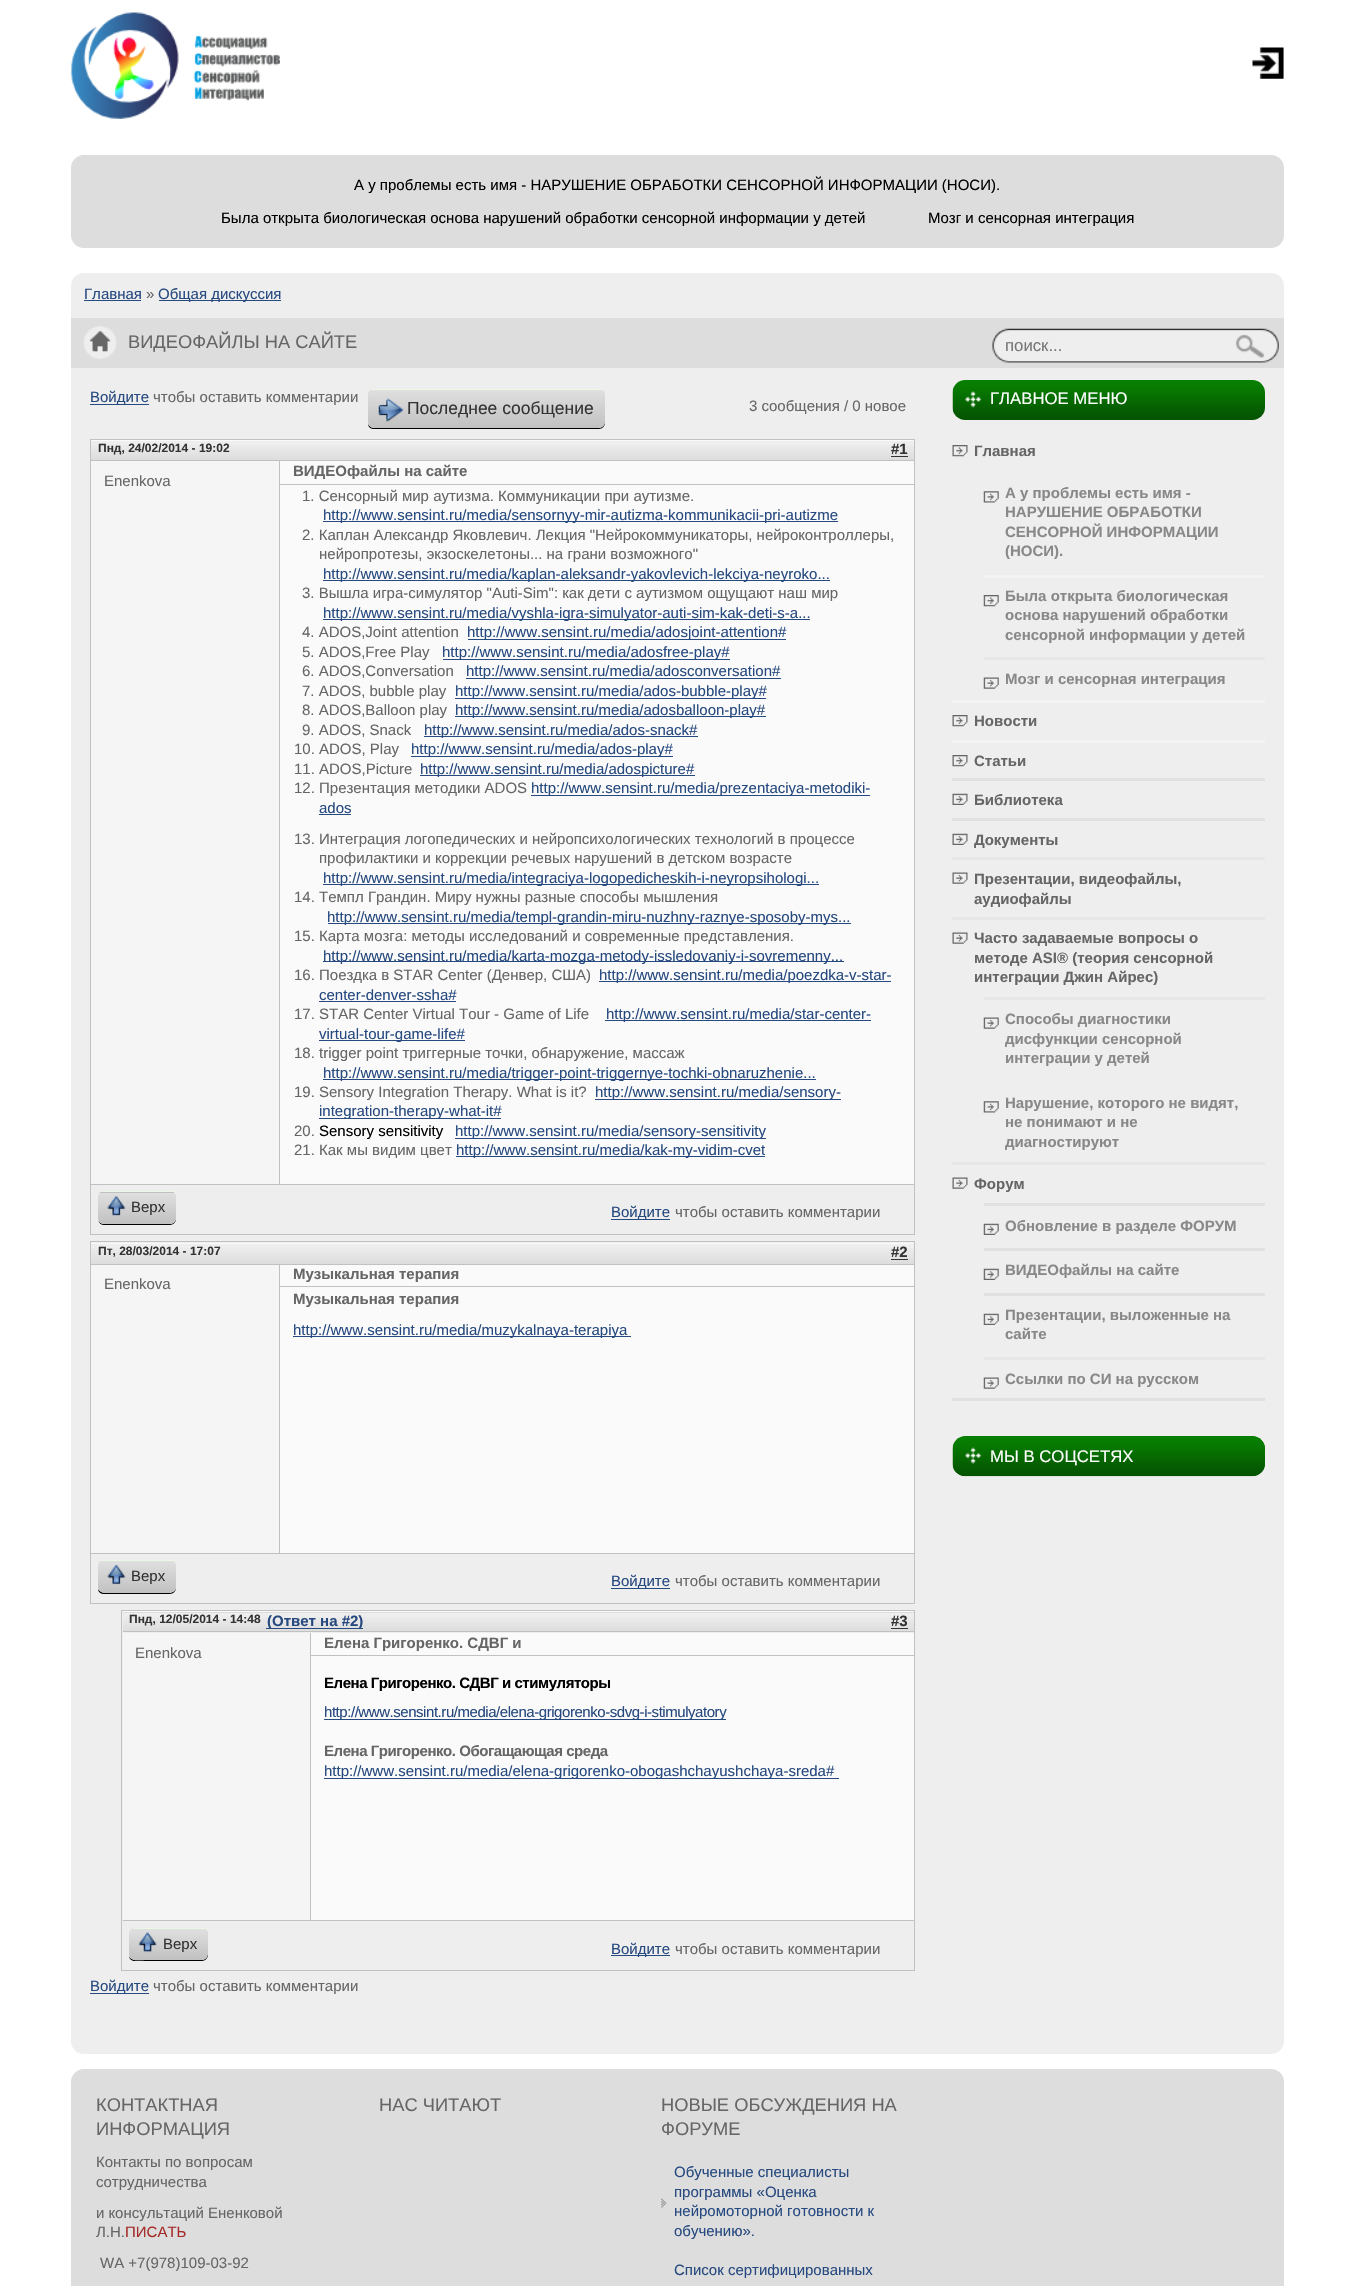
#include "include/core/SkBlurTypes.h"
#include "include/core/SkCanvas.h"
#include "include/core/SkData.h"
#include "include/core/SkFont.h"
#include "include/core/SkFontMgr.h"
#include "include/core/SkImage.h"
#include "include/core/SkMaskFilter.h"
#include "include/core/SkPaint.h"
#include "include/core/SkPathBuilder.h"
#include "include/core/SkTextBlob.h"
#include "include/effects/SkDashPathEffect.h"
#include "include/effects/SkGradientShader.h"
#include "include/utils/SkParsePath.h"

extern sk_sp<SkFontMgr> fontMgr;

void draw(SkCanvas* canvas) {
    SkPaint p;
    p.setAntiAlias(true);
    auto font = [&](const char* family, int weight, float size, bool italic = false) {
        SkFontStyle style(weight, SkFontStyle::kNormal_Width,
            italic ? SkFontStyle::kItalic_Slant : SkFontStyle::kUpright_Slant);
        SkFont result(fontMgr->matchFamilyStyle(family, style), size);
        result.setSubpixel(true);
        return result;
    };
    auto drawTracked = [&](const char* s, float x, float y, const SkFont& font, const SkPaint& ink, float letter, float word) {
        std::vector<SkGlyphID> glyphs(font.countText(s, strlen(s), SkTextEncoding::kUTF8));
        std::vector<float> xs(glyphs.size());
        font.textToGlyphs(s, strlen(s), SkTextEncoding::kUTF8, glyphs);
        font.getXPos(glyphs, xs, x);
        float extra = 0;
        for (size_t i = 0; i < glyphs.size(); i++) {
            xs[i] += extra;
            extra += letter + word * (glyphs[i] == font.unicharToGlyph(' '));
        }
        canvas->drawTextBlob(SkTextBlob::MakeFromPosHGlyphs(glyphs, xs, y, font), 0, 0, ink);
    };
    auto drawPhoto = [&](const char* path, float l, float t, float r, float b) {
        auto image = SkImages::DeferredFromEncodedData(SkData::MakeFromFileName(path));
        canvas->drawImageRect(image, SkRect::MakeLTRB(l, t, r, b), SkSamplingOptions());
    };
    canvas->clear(0xFFFFFFFF);
    drawPhoto("media/1.png", 71, 12, 280, 119);
    drawPhoto("media/2.png", 1252, 47, 1284, 79);
    p.setColor(0xFFDDDDDD);
    canvas->drawRoundRect(SkRect::MakeLTRB(71, 155, 1284, 248), 13, 13, p);
    auto font1 = font("Liberation Sans", 400, 15);
    p.setColor(0xFF000000);
    {
        const struct { const char* s; float x, y; } items[] = {
            {"А у проблемы есть имя - НАРУШЕНИЕ ОБРАБОТКИ СЕНСОРНОЙ ИНФОРМАЦИИ (НОСИ).", 354, 190},
            {"Была открыта биологическая основа нарушений обработки сенсорной информации у детей", 221, 223},
            {"Мозг и сенсорная интеграция", 928, 223},
        };
        for (auto [s, x, y] : items) {
            canvas->drawString(s, x, y, font1, p);
        }
    }
    p.setColor(0xFFEEEEEE);
    canvas->drawRoundRect(SkRect::MakeLTRB(71, 273, 1284, 2054), 13, 13, p);
    p.setColor(0xFF26497F);
    canvas->drawString("Главная", 84, 299, font1, p);
    canvas->drawRect(SkRect::MakeLTRB(84, 300, 141, 301), p);
    p.setColor(0xFF666666);
    canvas->drawString("»", 146, 299, font1, p);
    p.setColor(0xFF26497F);
    canvas->drawRect(SkRect::MakeLTRB(159, 300, 281, 301), p);
    canvas->drawString("Общая дискуссия", 158, 299, font1, p);
    p.setColor(0xFFDDDDDD);
    canvas->drawRect(SkRect::MakeLTRB(71, 318, 1284, 368), p);
    drawPhoto("media/3.png", 83, 326, 117, 359);
    auto font2 = font("Liberation Sans", 400, 18.3f);
    p.setColor(0xFF666666);
    canvas->drawString("ВИДЕОФАЙЛЫ НА САЙТЕ", 128, 348, font2, p);
    drawPhoto("media/4.png", 992, 328, 1279, 363);
    auto font3 = font("Liberation Sans", 400, 16.75f);
    p.setColor(0xFF777777);
    canvas->drawString("поиск...", 1005, 351, font3, p);
    p.setColor(0xFF26497F);
    canvas->drawRect(SkRect::MakeLTRB(90, 404, 149, 405), p);
    canvas->drawString("Войдите", 90, 402, font1, p);
    p.setColor(0xFF666666);
    canvas->drawString("чтобы оставить комментарии", 153, 402, font1, p);
    p.setColor(0xFF000000);
    canvas->drawPath(SkPathBuilder().moveTo(368, 424).cubicTo(368, 427, 371, 429, 374, 429).lineTo(599, 429).cubicTo(602, 429, 605, 426, 605, 423).lineTo(605, 421).cubicTo(605, 425, 602, 428, 599, 428).lineTo(374, 428).cubicTo(371, 428, 369, 426, 368, 424).close().detach(), p);
    canvas->save();
    canvas->clipPath(SkPathBuilder().moveTo(374, 389).lineTo(599, 389).cubicTo(602.5f, 389, 605, 391.5f, 605, 395).lineTo(605, 422).cubicTo(605, 425.5f, 602.5f, 428, 599, 428).lineTo(374, 428).cubicTo(370.5f, 428, 368, 425.5f, 368, 422).lineTo(368, 395).cubicTo(368, 391.5f, 370.5f, 389, 374, 389).close().detach(), true);
    {
        const SkColor colors[] = {0xFFDFDFDF, 0xFFC1C1C1};
        const float stops[] = {0, 1};
        const SkPoint ends[] = {{368, 390}, {368, 428}};
        p.setShader(SkGradientShader::MakeLinear(ends, colors, stops, 2, SkTileMode::kClamp));
        p.setAlpha(255);
    }
    canvas->drawPath(SkPathBuilder().moveTo(368, 390).lineTo(605, 390).lineTo(605, 422).cubicTo(605, 425.5f, 602.5f, 428, 599, 428).lineTo(374, 428).cubicTo(370.5f, 428, 368, 425.5f, 368, 422).close().detach(), p);
    canvas->restore();
    p.setShader(nullptr);
    p.setColor(0xFFEAF8E4);
    canvas->drawRect(SkRect::MakeLTRB(371, 389, 603, 390), p);
    drawPhoto("media/5.png", 378, 398, 404, 422);
    auto font4 = font("Liberation Sans", 400, 17.5f);
    p.setColor(0xFF333333);
    canvas->drawString("Последнее сообщение", 407, 414, font4, p);
    p.setColor(0xFF666666);
    canvas->drawString("3 сообщения / 0 новое", 749, 411, font1, p);
    p.setStyle(SkPaint::kStroke_Style);
    p.setStrokeWidth(1);
    p.setColor(0xFFC1C1C1);
    canvas->drawRect(SkRect::MakeLTRB(90.5f, 439.5f, 914.5f, 1234.5f), p);
    p.setStyle(SkPaint::kFill_Style);
    {
        const SkColor colors[] = {0xFFEFEFEF, 0xFFDDDDDD};
        const float stops[] = {0, 1};
        const SkPoint ends[] = {{91, 441}, {91, 460}};
        p.setShader(SkGradientShader::MakeLinear(ends, colors, stops, 2, SkTileMode::kClamp));
        p.setAlpha(255);
    }
    canvas->drawRect(SkRect::MakeLTRB(91, 445, 914, 460), p);
    p.setShader(nullptr);
    p.setColor(0xFFFAFAFA);
    canvas->drawRect(SkRect::MakeLTRB(91, 440, 914, 441), p);
    p.setColor(0xFFC1C1C1);
    canvas->drawRect(SkRect::MakeLTRB(91, 460, 914, 461), p);
    auto font5 = font("Liberation Sans", 700, 12);
    p.setColor(0xFF333333);
    canvas->drawString("Пнд, 24/02/2014 - 19:02", 98, 452, font5, p);
    auto font6 = font("Liberation Sans", 700, 15);
    canvas->drawString("#1", 891, 454, font6, p);
    canvas->drawRect(SkRect::MakeLTRB(891, 456, 908, 457), p);
    p.setColor(0xFFF5F5F5);
    canvas->drawRect(SkRect::MakeLTRB(91, 461, 279, 1184), p);
    p.setColor(0xFF666666);
    canvas->drawString("Enenkova", 104, 486, font1, p);
    {
        const struct { float l, t, r, b; SkColor color; } items[] = {
            {280, 461, 914, 1184, 0xFFFAFAFA},
            {279, 461, 280, 1184, 0xFFC1C1C1},
            {280, 484, 914, 485, 0xFFC1C1C1},
        };
        for (auto [l, t, r, b, color] : items) {
            p.setColor(color);
            canvas->drawRect(SkRect::MakeLTRB(l, t, r, b), p);
        }
    }
    p.setColor(0xFF666666);
    canvas->drawString("ВИДЕОфайлы на сайте", 293, 476, font6, p);
    canvas->drawString("1. Сенсорный мир аутизма. Коммуникации при аутизме.", 302, 501, font1, p);
    p.setColor(0xFF26497F);
    canvas->drawRect(SkRect::MakeLTRB(323, 521, 838, 522), p);
    canvas->drawString("http://www.sensint.ru/media/sensornyy-mir-autizma-kommunikacii-pri-autizme", 323, 520, font1, p);
    p.setColor(0xFF666666);
    canvas->drawString("2. Каплан Александр Яковлевич. Лекция \"Нейрокоммуникаторы, нейроконтроллеры,", 302, 540, font1, p);
    canvas->drawString("нейропротезы, экзоскелетоны... на грани возможного\"", 319, 559, font1, p);
    p.setColor(0xFF26497F);
    canvas->drawRect(SkRect::MakeLTRB(323, 580, 830, 581), p);
    canvas->drawString("http://www.sensint.ru/media/kaplan-aleksandr-yakovlevich-lekciya-neyroko...", 323, 579, font1, p);
    p.setColor(0xFF666666);
    canvas->drawString("3. Вышла игра-симулятор \"Auti-Sim\": как дети с аутизмом ощущают наш мир", 302, 598, font1, p);
    p.setColor(0xFF26497F);
    canvas->drawRect(SkRect::MakeLTRB(323, 619, 810, 620), p);
    canvas->drawString("http://www.sensint.ru/media/vyshla-igra-simulyator-auti-sim-kak-deti-s-a...", 323, 618, font1, p);
    p.setColor(0xFF666666);
    canvas->drawString("4. ADOS,Joint attention", 302, 637, font1, p);
    p.setColor(0xFF26497F);
    canvas->drawRect(SkRect::MakeLTRB(468, 639, 786, 640), p);
    canvas->drawString("http://www.sensint.ru/media/adosjoint-attention#", 467, 637, font1, p);
    p.setColor(0xFF666666);
    canvas->drawString("5. ADOS,Free Play", 302, 657, font1, p);
    p.setColor(0xFF26497F);
    canvas->drawRect(SkRect::MakeLTRB(443, 659, 730, 660), p);
    canvas->drawString("http://www.sensint.ru/media/adosfree-play#", 442, 657, font1, p);
    p.setColor(0xFF666666);
    canvas->drawString("6. ADOS,Conversation", 302, 676, font1, p);
    p.setColor(0xFF26497F);
    canvas->drawRect(SkRect::MakeLTRB(466, 678, 781, 679), p);
    canvas->drawString("http://www.sensint.ru/media/adosconversation#", 466, 676, font1, p);
    p.setColor(0xFF666666);
    canvas->drawString("7. ADOS, bubble play", 302, 696, font1, p);
    p.setColor(0xFF26497F);
    canvas->drawRect(SkRect::MakeLTRB(455, 698, 766, 699), p);
    canvas->drawString("http://www.sensint.ru/media/ados-bubble-play#", 455, 696, font1, p);
    p.setColor(0xFF666666);
    canvas->drawString("8. ADOS,Balloon play", 302, 715, font1, p);
    p.setColor(0xFF26497F);
    canvas->drawRect(SkRect::MakeLTRB(455, 716, 766, 717), p);
    canvas->drawString("http://www.sensint.ru/media/adosballoon-play#", 455, 715, font1, p);
    p.setColor(0xFF666666);
    canvas->drawString("9. ADOS, Snack", 302, 735, font1, p);
    p.setColor(0xFF26497F);
    canvas->drawRect(SkRect::MakeLTRB(424, 736, 698, 737), p);
    canvas->drawString("http://www.sensint.ru/media/ados-snack#", 424, 735, font1, p);
    p.setColor(0xFF666666);
    canvas->drawString("10. ADOS, Play", 294, 754, font1, p);
    p.setColor(0xFF26497F);
    canvas->drawRect(SkRect::MakeLTRB(411, 756, 673, 757), p);
    canvas->drawString("http://www.sensint.ru/media/ados-play#", 411, 754, font1, p);
    p.setColor(0xFF666666);
    canvas->drawString("11. ADOS,Picture", 294, 774, font1, p);
    p.setColor(0xFF26497F);
    canvas->drawRect(SkRect::MakeLTRB(420, 775, 695, 776), p);
    canvas->drawString("http://www.sensint.ru/media/adospicture#", 420, 774, font1, p);
    p.setColor(0xFF666666);
    canvas->drawString("12. Презентация методики ADOS", 294, 793, font1, p);
    p.setColor(0xFF26497F);
    canvas->drawRect(SkRect::MakeLTRB(531, 795, 870, 796), p);
    canvas->drawString("http://www.sensint.ru/media/prezentaciya-metodiki-", 531, 793, font1, p);
    canvas->drawString("ados", 319, 813, font1, p);
    canvas->drawRect(SkRect::MakeLTRB(319, 814, 351, 815), p);
    p.setColor(0xFF666666);
    canvas->drawString("13. Интеграция логопедических и нейропсихологических технологий в процессе", 294, 844, font1, p);
    canvas->drawString("профилактики и коррекции речевых нарушений в детском возрасте", 319, 863, font1, p);
    p.setColor(0xFF26497F);
    canvas->drawRect(SkRect::MakeLTRB(323, 884, 819, 885), p);
    canvas->drawString("http://www.sensint.ru/media/integraciya-logopedicheskih-i-neyropsihologi...", 323, 883, font1, p);
    p.setColor(0xFF666666);
    canvas->drawString("14. Темпл Грандин. Миру нужны разные способы мышления", 294, 902, font1, p);
    p.setColor(0xFF26497F);
    canvas->drawRect(SkRect::MakeLTRB(328, 923, 851, 924), p);
    canvas->drawString("http://www.sensint.ru/media/templ-grandin-miru-nuzhny-raznye-sposoby-mys...", 327, 922, font1, p);
    p.setColor(0xFF666666);
    canvas->drawString("15. Карта мозга: методы исследований и современные представления.", 294, 941, font1, p);
    p.setColor(0xFF26497F);
    canvas->drawRect(SkRect::MakeLTRB(323, 961, 844, 962), p);
    canvas->drawString("http://www.sensint.ru/media/karta-mozga-metody-issledovaniy-i-sovremenny...", 323, 961, font1, p);
    p.setColor(0xFF666666);
    canvas->drawString("16. Поездка в STAR Center (Денвер, США)", 294, 980, font1, p);
    p.setColor(0xFF26497F);
    canvas->drawRect(SkRect::MakeLTRB(599, 981, 891, 982), p);
    canvas->drawString("http://www.sensint.ru/media/poezdka-v-star-", 599, 980, font1, p);
    canvas->drawString("center-denver-ssha#", 319, 1000, font1, p);
    canvas->drawRect(SkRect::MakeLTRB(319, 1001, 456, 1002), p);
    p.setColor(0xFF666666);
    canvas->drawString("17. STAR Center Virtual Tour - Game of Life", 294, 1019, font1, p);
    p.setColor(0xFF26497F);
    canvas->drawRect(SkRect::MakeLTRB(605, 1020, 871, 1021), p);
    canvas->drawString("http://www.sensint.ru/media/star-center-", 606, 1019, font1, p);
    canvas->drawRect(SkRect::MakeLTRB(319, 1040, 465, 1041), p);
    canvas->drawString("virtual-tour-game-life#", 319, 1039, font1, p);
    p.setColor(0xFF666666);
    canvas->drawString("18. trigger point триггерные точки, обнаружение, массаж", 294, 1058, font1, p);
    p.setColor(0xFF26497F);
    canvas->drawRect(SkRect::MakeLTRB(323, 1079, 816, 1080), p);
    canvas->drawString("http://www.sensint.ru/media/trigger-point-triggernye-tochki-obnaruzhenie...", 323, 1078, font1, p);
    p.setColor(0xFF666666);
    canvas->drawString("19. Sensory Integration Therapy. What is it?", 294, 1097, font1, p);
    p.setColor(0xFF26497F);
    canvas->drawRect(SkRect::MakeLTRB(595, 1099, 841, 1100), p);
    canvas->drawString("http://www.sensint.ru/media/sensory-", 595, 1097, font1, p);
    canvas->drawRect(SkRect::MakeLTRB(319, 1118, 501, 1119), p);
    canvas->drawString("integration-therapy-what-it#", 319, 1116, font1, p);
    p.setColor(0xFF666666);
    canvas->drawString("20.", 294, 1136, font1, p);
    p.setColor(0xFF000000);
    canvas->drawString("Sensory sensitivity", 319, 1136, font1, p);
    p.setColor(0xFF26497F);
    canvas->drawRect(SkRect::MakeLTRB(455, 1138, 766, 1139), p);
    canvas->drawString("http://www.sensint.ru/media/sensory-sensitivity", 455, 1136, font1, p);
    p.setColor(0xFF666666);
    canvas->drawString("21. Как мы видим цвет", 294, 1155, font1, p);
    p.setColor(0xFF26497F);
    canvas->drawRect(SkRect::MakeLTRB(456, 1156, 765, 1157), p);
    canvas->drawString("http://www.sensint.ru/media/kak-my-vidim-cvet", 456, 1155, font1, p);
    p.setColor(0xFFC1C1C1);
    canvas->drawRect(SkRect::MakeLTRB(91, 1184, 914, 1185), p);
    p.setColor(0xFF000000);
    canvas->drawPath(SkPathBuilder().moveTo(98, 1220).cubicTo(99, 1223, 101, 1225, 104, 1225).lineTo(170, 1225).cubicTo(173, 1225, 176, 1222, 176, 1219).cubicTo(175, 1222, 173, 1224, 170, 1224).lineTo(104, 1224).cubicTo(101, 1224, 99, 1222, 98, 1220).close().detach(), p);
    canvas->save();
    canvas->clipPath(SkPathBuilder().moveTo(104, 1191).lineTo(170, 1191).cubicTo(173.5f, 1191, 176, 1193.5f, 176, 1197).lineTo(176, 1218).cubicTo(176, 1221.5f, 173.5f, 1224, 170, 1224).lineTo(104, 1224).cubicTo(100.5f, 1224, 98, 1221.5f, 98, 1218).lineTo(98, 1197).cubicTo(98, 1193.5f, 100.5f, 1191, 104, 1191).close().detach(), true);
    {
        const SkColor colors[] = {0xFFDFDFDF, 0xFFC1C1C1};
        const float stops[] = {0, 1};
        const SkPoint ends[] = {{98, 1161}, {98, 1193}};
        p.setShader(SkGradientShader::MakeLinear(ends, colors, stops, 2, SkTileMode::kClamp));
        p.setAlpha(255);
    }
    canvas->drawRect(SkRect::MakeLTRB(98, 1191, 176, 1193), p);
    {
        const SkColor colors[] = {0xFFDFDFDF, 0xFFC1C1C1};
        const float stops[] = {0, 1};
        const SkPoint ends[] = {{98, 1193}, {98, 1224}};
        p.setShader(SkGradientShader::MakeLinear(ends, colors, stops, 2, SkTileMode::kClamp));
        p.setAlpha(255);
    }
    canvas->drawPath(SkPathBuilder().moveTo(98, 1193).lineTo(176, 1193).lineTo(176, 1218).cubicTo(176, 1221.5f, 173.5f, 1224, 170, 1224).lineTo(104, 1224).cubicTo(100.5f, 1224, 98, 1221.5f, 98, 1218).close().detach(), p);
    canvas->restore();
    p.setShader(nullptr);
    p.setColor(0xFFEAF8E4);
    canvas->drawRect(SkRect::MakeLTRB(101, 1191, 174, 1192), p);
    drawPhoto("media/6.png", 107, 1196, 126, 1216);
    p.setColor(0xFF333333);
    canvas->drawString("Верх", 131, 1212, font1, p);
    p.setColor(0xFF26497F);
    canvas->drawRect(SkRect::MakeLTRB(611, 1219, 670, 1220), p);
    canvas->drawString("Войдите", 611, 1217, font1, p);
    p.setColor(0xFF666666);
    canvas->drawString("чтобы оставить комментарии", 675, 1217, font1, p);
    p.setStyle(SkPaint::kStroke_Style);
    p.setColor(0xFFC1C1C1);
    canvas->drawRect(SkRect::MakeLTRB(90.5f, 1241.5f, 914.5f, 1603.5f), p);
    p.setStyle(SkPaint::kFill_Style);
    {
        const SkColor colors[] = {0xFFEFEFEF, 0xFFDDDDDD};
        const float stops[] = {0, 1};
        const SkPoint ends[] = {{91, 1244}, {91, 1264}};
        p.setShader(SkGradientShader::MakeLinear(ends, colors, stops, 2, SkTileMode::kClamp));
        p.setAlpha(255);
    }
    canvas->drawRect(SkRect::MakeLTRB(91, 1248, 914, 1264), p);
    p.setShader(nullptr);
    p.setColor(0xFFFAFAFA);
    canvas->drawRect(SkRect::MakeLTRB(91, 1243, 914, 1244), p);
    p.setColor(0xFFC1C1C1);
    canvas->drawRect(SkRect::MakeLTRB(91, 1264, 914, 1265), p);
    p.setColor(0xFF333333);
    canvas->drawString("Пт, 28/03/2014 - 17:07", 98, 1255, font5, p);
    canvas->drawString("#2", 891, 1257, font6, p);
    canvas->drawRect(SkRect::MakeLTRB(891, 1259, 908, 1260), p);
    p.setColor(0xFFF5F5F5);
    canvas->drawRect(SkRect::MakeLTRB(91, 1265, 279, 1553), p);
    p.setColor(0xFF666666);
    canvas->drawString("Enenkova", 104, 1289, font1, p);
    {
        const struct { float l, t, r, b; SkColor color; } items[] = {
            {280, 1265, 914, 1553, 0xFFFAFAFA},
            {279, 1265, 280, 1553, 0xFFC1C1C1},
            {280, 1286, 914, 1287, 0xFFC1C1C1},
        };
        for (auto [l, t, r, b, color] : items) {
            p.setColor(color);
            canvas->drawRect(SkRect::MakeLTRB(l, t, r, b), p);
        }
    }
    p.setColor(0xFF666666);
    canvas->drawString("Музыкальная терапия", 293, 1279, font6, p);
    canvas->drawString("Музыкальная терапия", 293, 1304, font6, p);
    p.setColor(0xFF26497F);
    canvas->drawRect(SkRect::MakeLTRB(293, 1336, 631, 1337), p);
    canvas->drawString("http://www.sensint.ru/media/muzykalnaya-terapiya", 293, 1335, font1, p);
    p.setColor(0xFFC1C1C1);
    canvas->drawRect(SkRect::MakeLTRB(91, 1553, 914, 1554), p);
    p.setColor(0xFF000000);
    canvas->drawPath(SkPathBuilder().moveTo(98, 1589).cubicTo(98, 1592, 101, 1594, 104, 1594).lineTo(170, 1594).cubicTo(173, 1594, 176, 1591, 176, 1588).cubicTo(175, 1591, 173, 1592, 170, 1592).lineTo(104, 1592).cubicTo(101, 1592, 99, 1591, 98, 1589).close().detach(), p);
    canvas->save();
    canvas->clipPath(SkPathBuilder().moveTo(104, 1560).lineTo(170, 1560).cubicTo(173.5f, 1560, 176, 1562.5f, 176, 1566).lineTo(176, 1587).cubicTo(176, 1590.5f, 173.5f, 1593, 170, 1593).lineTo(104, 1593).cubicTo(100.5f, 1593, 98, 1590.5f, 98, 1587).lineTo(98, 1566).cubicTo(98, 1562.5f, 100.5f, 1560, 104, 1560).close().detach(), true);
    {
        const SkColor colors[] = {0xFFDFDFDF, 0xFFC1C1C1};
        const float stops[] = {0, 1};
        const SkPoint ends[] = {{98, 1561}, {98, 1593}};
        p.setShader(SkGradientShader::MakeLinear(ends, colors, stops, 2, SkTileMode::kClamp));
        p.setAlpha(255);
    }
    canvas->drawPath(SkPathBuilder().moveTo(98, 1561).lineTo(176, 1561).lineTo(176, 1587).cubicTo(176, 1590.5f, 173.5f, 1593, 170, 1593).lineTo(104, 1593).cubicTo(100.5f, 1593, 98, 1590.5f, 98, 1587).close().detach(), p);
    canvas->restore();
    p.setShader(nullptr);
    p.setColor(0xFFEAF8E4);
    canvas->drawRect(SkRect::MakeLTRB(101, 1560, 174, 1561), p);
    drawPhoto("media/7.png", 107, 1565, 126, 1585);
    p.setColor(0xFF333333);
    canvas->drawString("Верх", 131, 1581, font1, p);
    p.setColor(0xFF26497F);
    canvas->drawRect(SkRect::MakeLTRB(611, 1588, 670, 1589), p);
    canvas->drawString("Войдите", 611, 1586, font1, p);
    p.setColor(0xFF666666);
    canvas->drawString("чтобы оставить комментарии", 675, 1586, font1, p);
    p.setStyle(SkPaint::kStroke_Style);
    p.setColor(0xFFC1C1C1);
    canvas->drawRect(SkRect::MakeLTRB(121.5f, 1610.5f, 914.5f, 1970.5f), p);
    p.setStyle(SkPaint::kFill_Style);
    {
        const SkColor colors[] = {0xFFEFEFEF, 0xFFDDDDDD};
        const float stops[] = {0, 1};
        const SkPoint ends[] = {{123, 1594}, {123, 1613}};
        p.setShader(SkGradientShader::MakeLinear(ends, colors, stops, 2, SkTileMode::kClamp));
        p.setAlpha(255);
    }
    canvas->drawRect(SkRect::MakeLTRB(123, 1612, 914, 1613), p);
    {
        const SkColor colors[] = {0xFFEFEFEF, 0xFFDDDDDD};
        const float stops[] = {0, 1};
        const SkPoint ends[] = {{123, 1613}, {123, 1631}};
        p.setShader(SkGradientShader::MakeLinear(ends, colors, stops, 2, SkTileMode::kClamp));
        p.setAlpha(255);
    }
    canvas->drawRect(SkRect::MakeLTRB(123, 1617, 914, 1631), p);
    p.setShader(nullptr);
    p.setColor(0xFFFAFAFA);
    canvas->drawRect(SkRect::MakeLTRB(123, 1611, 914, 1612), p);
    p.setColor(0xFFC1C1C1);
    canvas->drawRect(SkRect::MakeLTRB(123, 1631, 914, 1632), p);
    p.setColor(0xFF333333);
    canvas->drawString("Пнд, 12/05/2014 - 14:48", 129, 1623, font5, p);
    p.setColor(0xFF26497F);
    canvas->drawRect(SkRect::MakeLTRB(266, 1628, 363, 1629), p);
    canvas->drawString("(Ответ на #2)", 267, 1626, font6, p);
    p.setColor(0xFF333333);
    canvas->drawString("#3", 891, 1626, font6, p);
    canvas->drawRect(SkRect::MakeLTRB(891, 1628, 908, 1629), p);
    p.setColor(0xFFF5F5F5);
    canvas->drawRect(SkRect::MakeLTRB(123, 1633, 310, 1920), p);
    p.setColor(0xFF666666);
    canvas->drawString("Enenkova", 135, 1658, font1, p);
    {
        const struct { float l, t, r, b; SkColor color; } items[] = {
            {311, 1633, 914, 1920, 0xFFFAFAFA},
            {310, 1633, 311, 1920, 0xFFC1C1C1},
            {311, 1655, 914, 1656, 0xFFC1C1C1},
        };
        for (auto [l, t, r, b, color] : items) {
            p.setColor(color);
            canvas->drawRect(SkRect::MakeLTRB(l, t, r, b), p);
        }
    }
    p.setColor(0xFF666666);
    canvas->drawString("Елена Григоренко. СДВГ и", 324, 1648, font6, p);
    p.setColor(0xFF000000);
    drawTracked("Елена Григоренко. СДВГ и стимуляторы", 324, 1688, font6, p, -0.45f, 0);
    p.setColor(0xFF26497F);
    canvas->drawRect(SkRect::MakeLTRB(324, 1719, 726, 1720), p);
    drawTracked("http://www.sensint.ru/media/elena-grigorenko-sdvg-i-stimulyatory", 324, 1717, font1, p, -0.45f, 0);
    p.setColor(0xFF666666);
    drawTracked("Елена Григоренко. Обогащающая среда", 324, 1756, font6, p, -0.45f, 0);
    p.setColor(0xFF26497F);
    canvas->drawRect(SkRect::MakeLTRB(324, 1778, 839, 1779), p);
    canvas->drawString("http://www.sensint.ru/media/elena-grigorenko-obogashchayushchaya-sreda#", 324, 1776, font1, p);
    p.setColor(0xFFC1C1C1);
    canvas->drawRect(SkRect::MakeLTRB(123, 1920, 914, 1921), p);
    p.setColor(0xFF000000);
    canvas->drawPath(SkPathBuilder().moveTo(129, 1956).cubicTo(129, 1959, 132, 1961, 135, 1961).lineTo(202, 1961).cubicTo(205, 1961, 208, 1958, 208, 1955).lineTo(208, 1935).lineTo(207, 1932).lineTo(208, 1947).cubicTo(208, 1962, 206, 1960, 190, 1960).lineTo(146, 1960).cubicTo(142, 1960, 131, 1962, 129, 1956).close().detach(), p);
    canvas->save();
    canvas->clipPath(SkPathBuilder().moveTo(135, 1928).lineTo(202, 1928).cubicTo(205.5f, 1928, 208, 1930.5f, 208, 1934).lineTo(208, 1954).cubicTo(208, 1957.5f, 205.5f, 1960, 202, 1960).lineTo(135, 1960).cubicTo(131.5f, 1960, 129, 1957.5f, 129, 1954).lineTo(129, 1934).cubicTo(129, 1930.5f, 131.5f, 1928, 135, 1928).close().detach(), true);
    {
        const SkColor colors[] = {0xFFDFDFDF, 0xFFC1C1C1};
        const float stops[] = {0, 1};
        const SkPoint ends[] = {{129, 1898}, {129, 1929}};
        p.setShader(SkGradientShader::MakeLinear(ends, colors, stops, 2, SkTileMode::kClamp));
        p.setAlpha(255);
    }
    canvas->drawRect(SkRect::MakeLTRB(129, 1928, 208, 1929), p);
    {
        const SkColor colors[] = {0xFFDFDFDF, 0xFFC1C1C1};
        const float stops[] = {0, 1};
        const SkPoint ends[] = {{129, 1929}, {129, 1960}};
        p.setShader(SkGradientShader::MakeLinear(ends, colors, stops, 2, SkTileMode::kClamp));
        p.setAlpha(255);
    }
    canvas->drawPath(SkPathBuilder().moveTo(129, 1929).lineTo(208, 1929).lineTo(208, 1954).cubicTo(208, 1957.5f, 205.5f, 1960, 202, 1960).lineTo(135, 1960).cubicTo(131.5f, 1960, 129, 1957.5f, 129, 1954).close().detach(), p);
    canvas->restore();
    p.setShader(nullptr);
    p.setColor(0xFFEAF8E4);
    canvas->drawRect(SkRect::MakeLTRB(133, 1928, 205, 1929), p);
    drawPhoto("media/8.png", 138, 1932, 157, 1953);
    p.setColor(0xFF333333);
    canvas->drawString("Верх", 163, 1949, font1, p);
    p.setColor(0xFF26497F);
    canvas->drawRect(SkRect::MakeLTRB(611, 1955, 670, 1956), p);
    canvas->drawString("Войдите", 611, 1954, font1, p);
    p.setColor(0xFF666666);
    canvas->drawString("чтобы оставить комментарии", 675, 1954, font1, p);
    p.setColor(0xFF26497F);
    canvas->drawRect(SkRect::MakeLTRB(90, 1993, 149, 1994), p);
    canvas->drawString("Войдите", 90, 1991, font1, p);
    p.setColor(0xFF666666);
    canvas->drawString("чтобы оставить комментарии", 153, 1991, font1, p);
    drawPhoto("media/9.png", 952, 380, 1265, 420);
    drawPhoto("media/10.png", 965, 391, 982, 408);
    p.setColor(0xFFFFFFFF);
    canvas->drawString("ГЛАВНОЕ МЕНЮ", 990, 404, font3, p);
    p.setColor(0xFFF3F3F3);
    canvas->drawRect(SkRect::MakeLTRB(952, 700, 1265, 703), p);
    drawPhoto("media/11.png", 952, 445, 968, 457);
    p.setColor(0xFF666666);
    canvas->drawString("Главная", 974, 456, font6, p);
    drawPhoto("media/12.png", 983, 491, 999, 503);
    p.setColor(0xFF888888);
    {
        const struct { const char* s; float x, y; } items[] = {
            {"А у проблемы есть имя -", 1005, 498},
            {"НАРУШЕНИЕ ОБРАБОТКИ", 1005, 517},
            {"СЕНСОРНОЙ ИНФОРМАЦИИ", 1005, 537},
            {"(НОСИ).", 1005, 556},
        };
        for (auto [s, x, y] : items) {
            canvas->drawString(s, x, y, font6, p);
        }
    }
    p.setColor(0xFFF3F3F3);
    canvas->drawRect(SkRect::MakeLTRB(983, 575, 1265, 578), p);
    drawPhoto("media/13.png", 983, 595, 999, 607);
    p.setColor(0xFF888888);
    {
        const struct { const char* s; float x, y; } items[] = {
            {"Была открыта биологическая", 1005, 601},
            {"основа нарушений обработки", 1005, 620},
            {"сенсорной информации у детей", 1005, 640},
        };
        for (auto [s, x, y] : items) {
            canvas->drawString(s, x, y, font6, p);
        }
    }
    p.setColor(0xFFE7E7E7);
    canvas->drawRect(SkRect::MakeLTRB(984, 657, 1265, 660), p);
    drawPhoto("media/14.png", 983, 677, 999, 689);
    p.setColor(0xFF888888);
    canvas->drawString("Мозг и сенсорная интеграция", 1005, 684, font6, p);
    p.setColor(0xFFF3F3F3);
    canvas->drawRect(SkRect::MakeLTRB(952, 740, 1265, 743), p);
    drawPhoto("media/11.png", 952, 715, 968, 727);
    p.setColor(0xFF666666);
    canvas->drawString("Новости", 974, 726, font6, p);
    p.setColor(0xFFE0E0E0);
    canvas->drawRect(SkRect::MakeLTRB(952, 778, 1265, 781), p);
    drawPhoto("media/11.png", 952, 755, 968, 767);
    p.setColor(0xFF666666);
    canvas->drawString("Статьи", 974, 766, font6, p);
    p.setColor(0xFFE0E0E0);
    canvas->drawRect(SkRect::MakeLTRB(952, 818, 1265, 821), p);
    drawPhoto("media/15.png", 952, 793, 968, 805);
    p.setColor(0xFF666666);
    canvas->drawString("Библиотека", 974, 805, font6, p);
    p.setColor(0xFFE7E7E7);
    canvas->drawRect(SkRect::MakeLTRB(952, 857, 1265, 860), p);
    drawPhoto("media/15.png", 952, 833, 968, 845);
    p.setColor(0xFF666666);
    canvas->drawString("Документы", 974, 845, font6, p);
    p.setColor(0xFFE7E7E7);
    canvas->drawRect(SkRect::MakeLTRB(952, 917, 1265, 920), p);
    drawPhoto("media/16.png", 952, 872, 968, 884);
    p.setColor(0xFF666666);
    canvas->drawString("Презентации, видеофайлы,", 974, 884, font6, p);
    canvas->drawString("аудиофайлы", 974, 904, font6, p);
    p.setColor(0xFFE7E7E7);
    canvas->drawRect(SkRect::MakeLTRB(952, 1162, 1265, 1165), p);
    drawPhoto("media/16.png", 952, 932, 968, 944);
    p.setColor(0xFF666666);
    {
        const struct { const char* s; float x, y; } items[] = {
            {"Часто задаваемые вопросы о", 974, 943},
            {"методе ASI® (теория сенсорной", 974, 963},
            {"интеграции Джин Айрес)", 974, 982},
        };
        for (auto [s, x, y] : items) {
            canvas->drawString(s, x, y, font6, p);
        }
    }
    p.setColor(0xFFE7E7E7);
    canvas->drawRect(SkRect::MakeLTRB(984, 997, 1265, 1000), p);
    drawPhoto("media/14.png", 983, 1017, 999, 1029);
    p.setColor(0xFF888888);
    {
        const struct { const char* s; float x, y; } items[] = {
            {"Способы диагностики", 1005, 1024},
            {"дисфункции сенсорной", 1005, 1044},
            {"интеграции у детей", 1005, 1063},
        };
        for (auto [s, x, y] : items) {
            canvas->drawString(s, x, y, font6, p);
        }
    }
    drawPhoto("media/12.png", 983, 1101, 999, 1113);
    {
        const struct { const char* s; float x, y; } items[] = {
            {"Нарушение, которого не видят,", 1005, 1108},
            {"не понимают и не", 1005, 1127},
            {"диагностируют", 1005, 1147},
        };
        for (auto [s, x, y] : items) {
            canvas->drawString(s, x, y, font6, p);
        }
    }
    p.setColor(0xFFE0E0E0);
    canvas->drawRect(SkRect::MakeLTRB(952, 1398, 1265, 1401), p);
    drawPhoto("media/16.png", 952, 1177, 968, 1189);
    p.setColor(0xFF666666);
    canvas->drawString("Форум", 974, 1189, font6, p);
    p.setColor(0xFFE0E0E0);
    canvas->drawRect(SkRect::MakeLTRB(984, 1203, 1265, 1206), p);
    drawPhoto("media/17.png", 983, 1223, 999, 1235);
    p.setColor(0xFF888888);
    canvas->drawString("Обновление в разделе ФОРУМ", 1005, 1231, font6, p);
    p.setColor(0xFFE0E0E0);
    canvas->drawRect(SkRect::MakeLTRB(984, 1248, 1265, 1251), p);
    drawPhoto("media/17.png", 983, 1268, 999, 1280);
    p.setColor(0xFF888888);
    canvas->drawString("ВИДЕОфайлы на сайте", 1005, 1275, font6, p);
    p.setColor(0xFFE0E0E0);
    canvas->drawRect(SkRect::MakeLTRB(984, 1293, 1265, 1296), p);
    drawPhoto("media/17.png", 983, 1313, 999, 1325);
    p.setColor(0xFF888888);
    canvas->drawString("Презентации, выложенные на", 1005, 1320, font6, p);
    canvas->drawString("сайте", 1005, 1339, font6, p);
    p.setColor(0xFFE7E7E7);
    canvas->drawRect(SkRect::MakeLTRB(984, 1357, 1265, 1360), p);
    drawPhoto("media/14.png", 983, 1377, 999, 1389);
    p.setColor(0xFF888888);
    canvas->drawString("Ссылки по СИ на русском", 1005, 1384, font6, p);
    p.setColor(0xFF067001);
    canvas->drawRoundRect(SkRect::MakeLTRB(953, 1436, 1265, 1476), 13, 13, p);
    drawPhoto("media/18.png", 952, 1436, 1265, 1477);
    drawPhoto("media/19.png", 965, 1447, 982, 1464);
    p.setColor(0xFFFFFFFF);
    canvas->drawString("МЫ В СОЦСЕТЯХ", 990, 1462, font3, p);
    p.setColor(0xFFDDDDDD);
    canvas->drawRoundRect(SkRect::MakeLTRB(71, 2069, 1284, 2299), 13, 13, p);
    p.setColor(0xFF666666);
    canvas->drawString("КОНТАКТНАЯ", 96, 2111, font2, p);
    canvas->drawString("ИНФОРМАЦИЯ", 96, 2135, font2, p);
    {
        const struct { const char* s; float x, y; } items[] = {
            {"Контакты по вопросам", 96, 2167},
            {"сотрудничества", 96, 2187},
            {"и консультаций Ененковой", 96, 2218},
            {"Л.Н.", 96, 2237},
        };
        for (auto [s, x, y] : items) {
            canvas->drawString(s, x, y, font1, p);
        }
    }
    p.setColor(0xFFA52A2A);
    canvas->drawString("ПИСАТЬ", 125, 2237, font1, p);
    p.setColor(0xFF666666);
    canvas->drawString("WA +7(978)109-03-92", 100, 2268, font1, p);
    {
        const struct { const char* s; float x, y; } items[] = {
            {"НАС ЧИТАЮТ", 379, 2111},
            {"НОВЫЕ ОБСУЖДЕНИЯ НА", 661, 2111},
            {"ФОРУМЕ", 661, 2135},
        };
        for (auto [s, x, y] : items) {
            canvas->drawString(s, x, y, font2, p);
        }
    }
    drawPhoto("media/20.png", 661, 2198, 667, 2208);
    p.setColor(0xFF26497F);
    {
        const struct { const char* s; float x, y; } items[] = {
            {"Обученные специалисты", 674, 2177},
            {"программы «Оценка", 674, 2197},
            {"нейромоторной готовности к", 674, 2216},
            {"обучению».", 674, 2236},
            {"Список сертифицированных", 674, 2275},
        };
        for (auto [s, x, y] : items) {
            canvas->drawString(s, x, y, font1, p);
        }
    }
}
